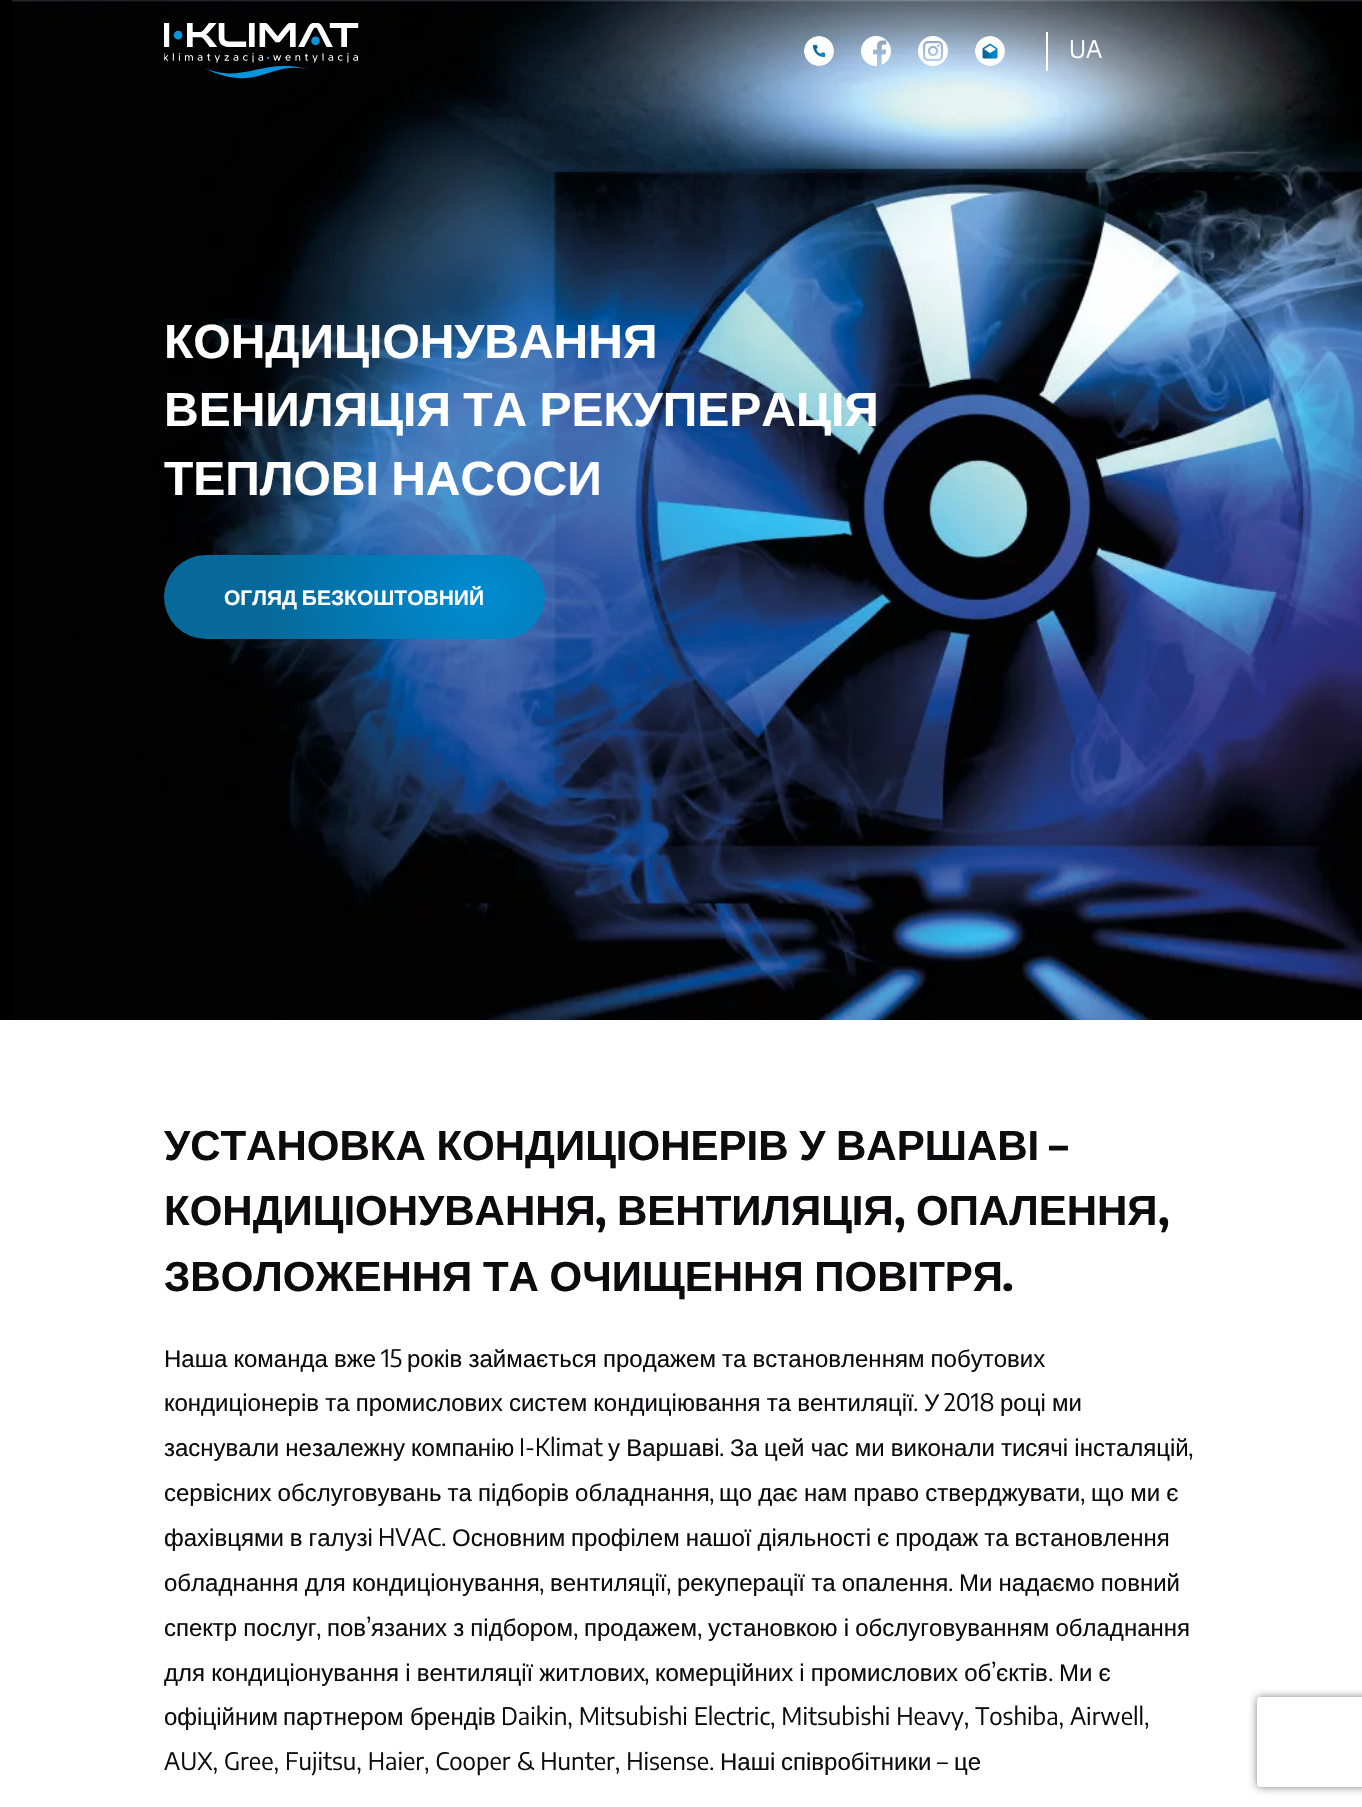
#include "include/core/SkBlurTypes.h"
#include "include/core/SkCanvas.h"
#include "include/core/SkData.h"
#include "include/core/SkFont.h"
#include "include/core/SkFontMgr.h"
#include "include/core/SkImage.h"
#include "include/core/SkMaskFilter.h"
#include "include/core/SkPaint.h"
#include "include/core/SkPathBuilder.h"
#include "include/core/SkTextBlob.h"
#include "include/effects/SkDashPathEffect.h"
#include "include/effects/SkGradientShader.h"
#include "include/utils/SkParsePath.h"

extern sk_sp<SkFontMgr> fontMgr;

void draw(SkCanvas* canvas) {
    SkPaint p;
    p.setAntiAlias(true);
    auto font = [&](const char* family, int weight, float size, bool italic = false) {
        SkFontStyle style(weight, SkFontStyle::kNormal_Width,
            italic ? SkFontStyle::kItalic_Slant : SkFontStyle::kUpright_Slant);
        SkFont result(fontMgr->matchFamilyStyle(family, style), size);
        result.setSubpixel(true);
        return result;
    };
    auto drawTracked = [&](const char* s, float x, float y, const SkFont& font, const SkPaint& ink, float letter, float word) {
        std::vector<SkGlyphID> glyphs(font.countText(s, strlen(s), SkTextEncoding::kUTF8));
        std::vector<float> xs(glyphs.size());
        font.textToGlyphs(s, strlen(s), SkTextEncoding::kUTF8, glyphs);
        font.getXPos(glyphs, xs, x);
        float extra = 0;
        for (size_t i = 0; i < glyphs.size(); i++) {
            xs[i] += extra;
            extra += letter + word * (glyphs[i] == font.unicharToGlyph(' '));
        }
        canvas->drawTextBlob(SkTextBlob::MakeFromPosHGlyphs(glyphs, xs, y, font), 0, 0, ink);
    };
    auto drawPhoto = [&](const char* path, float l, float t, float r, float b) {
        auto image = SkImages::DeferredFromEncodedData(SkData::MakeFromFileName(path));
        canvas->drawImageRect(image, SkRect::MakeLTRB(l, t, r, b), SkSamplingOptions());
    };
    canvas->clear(0xFFFFFFFF);
    drawPhoto("media/6.png", 12, 0, 1362, 1020);
    drawPhoto("media/1.png", 164, 23, 359, 79);
    drawPhoto("media/2.png", 804, 36, 834, 66);
    drawPhoto("media/3.png", 861, 36, 891, 66);
    drawPhoto("media/4.png", 918, 36, 948, 66);
    drawPhoto("media/5.png", 975, 36, 1005, 66);
    p.setColor(0xFFFFFFFF);
    canvas->drawRect(SkRect::MakeLTRB(1046, 32, 1048, 71), p);
    auto font1 = font("Encode Sans Condensed", 400, 24);
    canvas->drawString("UA", 1069, 58, font1, p);
    p.setColor(0xFF000000);
    canvas->drawRect(SkRect::MakeLTRB(0, 0, 12, 1020), p);
    auto font2 = font("Liberation Sans", 700, 48);
    p.setColor(0xFFFFFFFF);
    canvas->drawString("КОНДИЦІОНУВАННЯ", 164, 358, font2, p);
    drawTracked("ВЕНИЛЯЦІЯ ТА РЕКУПЕРАЦІЯ", 164, 426, font2, p, 0, -1);
    drawTracked("ТЕПЛОВІ НАСОСИ", 164, 495, font2, p, 0, -1);
    {
        const SkColor colors[] = {0xFF008CD2, 0xFF06699A};
        const float stops[] = {0, 1};
        SkMatrix m = SkMatrix::Translate(479, 597).preScale(214, 189);
        p.setShader(SkGradientShader::MakeRadial({0, 0}, 1, colors, stops, 2, SkTileMode::kClamp, 0, &m));
        p.setAlpha(255);
    }
    canvas->drawRoundRect(SkRect::MakeLTRB(164, 555, 545, 639), 42, 42, p);
    auto font3 = font("Liberation Sans", 700, 21);
    p.setShader(nullptr);
    p.setColor(0xFFFFFFFF);
    drawTracked("ОГЛЯД БЕЗКОШТОВНИЙ", 224, 605, font3, p, 0, -1);
    auto font4 = font("Liberation Sans", 700, 42);
    p.setColor(0xFF0D0B0D);
    drawTracked("УСТАНОВКА КОНДИЦІОНЕРІВ У ВАРШАВІ", 164, 1160, font4, p, 0, -1);
    auto font5 = font("Encode Sans Condensed", 700, 42);
    canvas->drawString("–", 1049, 1160, font5, p);
    canvas->drawString("КОНДИЦІОНУВАННЯ", 164, 1225, font4, p);
    canvas->drawString(",", 595, 1225, font5, p);
    canvas->drawString("ВЕНТИЛЯЦІЯ", 617, 1225, font4, p);
    canvas->drawString(",", 894, 1225, font5, p);
    canvas->drawString("ОПАЛЕННЯ", 916, 1225, font4, p);
    canvas->drawString(",", 1158, 1225, font5, p);
    drawTracked("ЗВОЛОЖЕННЯ ТА ОЧИЩЕННЯ ПОВІТРЯ", 164, 1291, font4, p, 0, -1);
    canvas->drawString(".", 1002, 1291, font5, p);
    auto font6 = font("Liberation Sans", 400, 24);
    drawTracked("Наша команда вже", 164, 1367, font6, p, 0, -0.5f);
    canvas->drawString("15", 381, 1367, font1, p);
    drawTracked("років займається продажем та встановленням побутових", 407, 1367, font6, p, 0, -0.5f);
    drawTracked("кондиціонерів та промислових систем кондиціювання та вентиляції", 164, 1411, font6, p, 0, -0.5f);
    canvas->drawString(".", 913, 1411, font1, p);
    canvas->drawString("У", 924, 1411, font6, p);
    canvas->drawString("2018", 944, 1411, font1, p);
    drawTracked("році ми", 1000, 1411, font6, p, 0, -0.5f);
    drawTracked("заснували незалежну компанію", 164, 1456, font6, p, 0, -0.5f);
    canvas->drawString("I-Klimat", 519, 1456, font1, p);
    drawTracked("у Варшаві", 608, 1456, font6, p, 0, -0.5f);
    canvas->drawString(".", 719, 1456, font1, p);
    drawTracked("За цей час ми виконали тисячі інсталяцій", 730, 1456, font6, p, 0, -0.5f);
    canvas->drawString(",", 1188, 1456, font1, p);
    drawTracked("сервісних обслуговувань та підборів обладнання", 164, 1501, font6, p, 0, -0.5f);
    canvas->drawString(",", 709, 1501, font1, p);
    drawTracked("що дає нам право стверджувати", 719, 1501, font6, p, 0, -0.5f);
    canvas->drawString(",", 1080, 1501, font1, p);
    drawTracked("що ми є", 1091, 1501, font6, p, 0, -0.5f);
    drawTracked("фахівцями в галузі", 164, 1546, font6, p, 0, -0.75f);
    canvas->drawString("HVAC.", 378, 1546, font1, p);
    drawTracked("Основним профілем нашої діяльності є продаж та встановлення", 452, 1546, font6, p, 0, -0.75f);
    drawTracked("обладнання для кондиціонування", 164, 1591, font6, p, 0, -0.5f);
    canvas->drawString(",", 539, 1591, font1, p);
    canvas->drawString("вентиляції", 550, 1591, font6, p);
    canvas->drawString(",", 666, 1591, font1, p);
    drawTracked("рекуперації та опалення", 677, 1591, font6, p, 0, -0.5f);
    canvas->drawString(".", 948, 1591, font1, p);
    drawTracked("Ми надаємо повний", 959, 1591, font6, p, 0, -0.5f);
    drawTracked("спектр послуг", 164, 1636, font6, p, 0, -0.5f);
    canvas->drawString(",", 316, 1636, font1, p);
    canvas->drawString("пов", 327, 1636, font6, p);
    canvas->drawString("’", 366, 1636, font1, p);
    drawTracked("язаних з підбором", 371, 1636, font6, p, 0, -0.5f);
    canvas->drawString(",", 573, 1636, font1, p);
    canvas->drawString("продажем", 584, 1636, font6, p);
    canvas->drawString(",", 697, 1636, font1, p);
    drawTracked("установкою і обслуговуванням обладнання", 708, 1636, font6, p, 0, -0.5f);
    drawTracked("для кондиціонування і вентиляції житлових", 164, 1681, font6, p, 0, -0.5f);
    canvas->drawString(",", 644, 1681, font1, p);
    drawTracked("комерційних і промислових об", 655, 1681, font6, p, 0, -0.5f);
    canvas->drawString("’", 991, 1681, font1, p);
    canvas->drawString("єктів", 996, 1681, font6, p);
    canvas->drawString(".", 1048, 1681, font1, p);
    drawTracked("Ми є", 1059, 1681, font6, p, 0, -0.5f);
    {
        const struct { const char* s; float x, y; } items[] = {
            {"офіційним", 164, 1725},
            {"партнером", 283, 1725},
            {"брендів", 410, 1725},
        };
        for (auto [s, x, y] : items) {
            canvas->drawString(s, x, y, font6, p);
        }
    }
    canvas->drawString("Daikin, Mitsubishi Electric, Mitsubishi Heavy, Toshiba, Airwell,", 501, 1725, font1, p);
    canvas->drawString("AUX, Gree, Fujitsu, Haier, Cooper & Hunter, Hisense.", 164, 1770, font1, p);
    canvas->drawString("Наші", 720, 1770, font6, p);
    canvas->drawString("співробітники", 781, 1770, font6, p);
    canvas->drawString("–", 937, 1770, font1, p);
    canvas->drawString("це", 954, 1770, font6, p);
    canvas->save();
    canvas->clipPath(SkPathBuilder(SkPathFillType::kEvenOdd).moveTo(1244, 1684).lineTo(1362, 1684).lineTo(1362, 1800).lineTo(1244, 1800).close().moveTo(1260, 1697).lineTo(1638, 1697).cubicTo(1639.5f, 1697, 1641, 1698.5f, 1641, 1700).lineTo(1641, 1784).cubicTo(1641, 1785.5f, 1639.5f, 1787, 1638, 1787).lineTo(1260, 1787).cubicTo(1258.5f, 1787, 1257, 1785.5f, 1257, 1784).lineTo(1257, 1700).cubicTo(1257, 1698.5f, 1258.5f, 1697, 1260, 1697).close().detach(), true);
    p.setColor(0xFF808080);
    p.setMaskFilter(SkMaskFilter::MakeBlur(kNormal_SkBlurStyle, 4));
    canvas->drawRoundRect(SkRect::MakeLTRB(1257, 1697, 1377, 1787), 3, 3, p);
    p.setMaskFilter(nullptr);
    canvas->restore();
}
